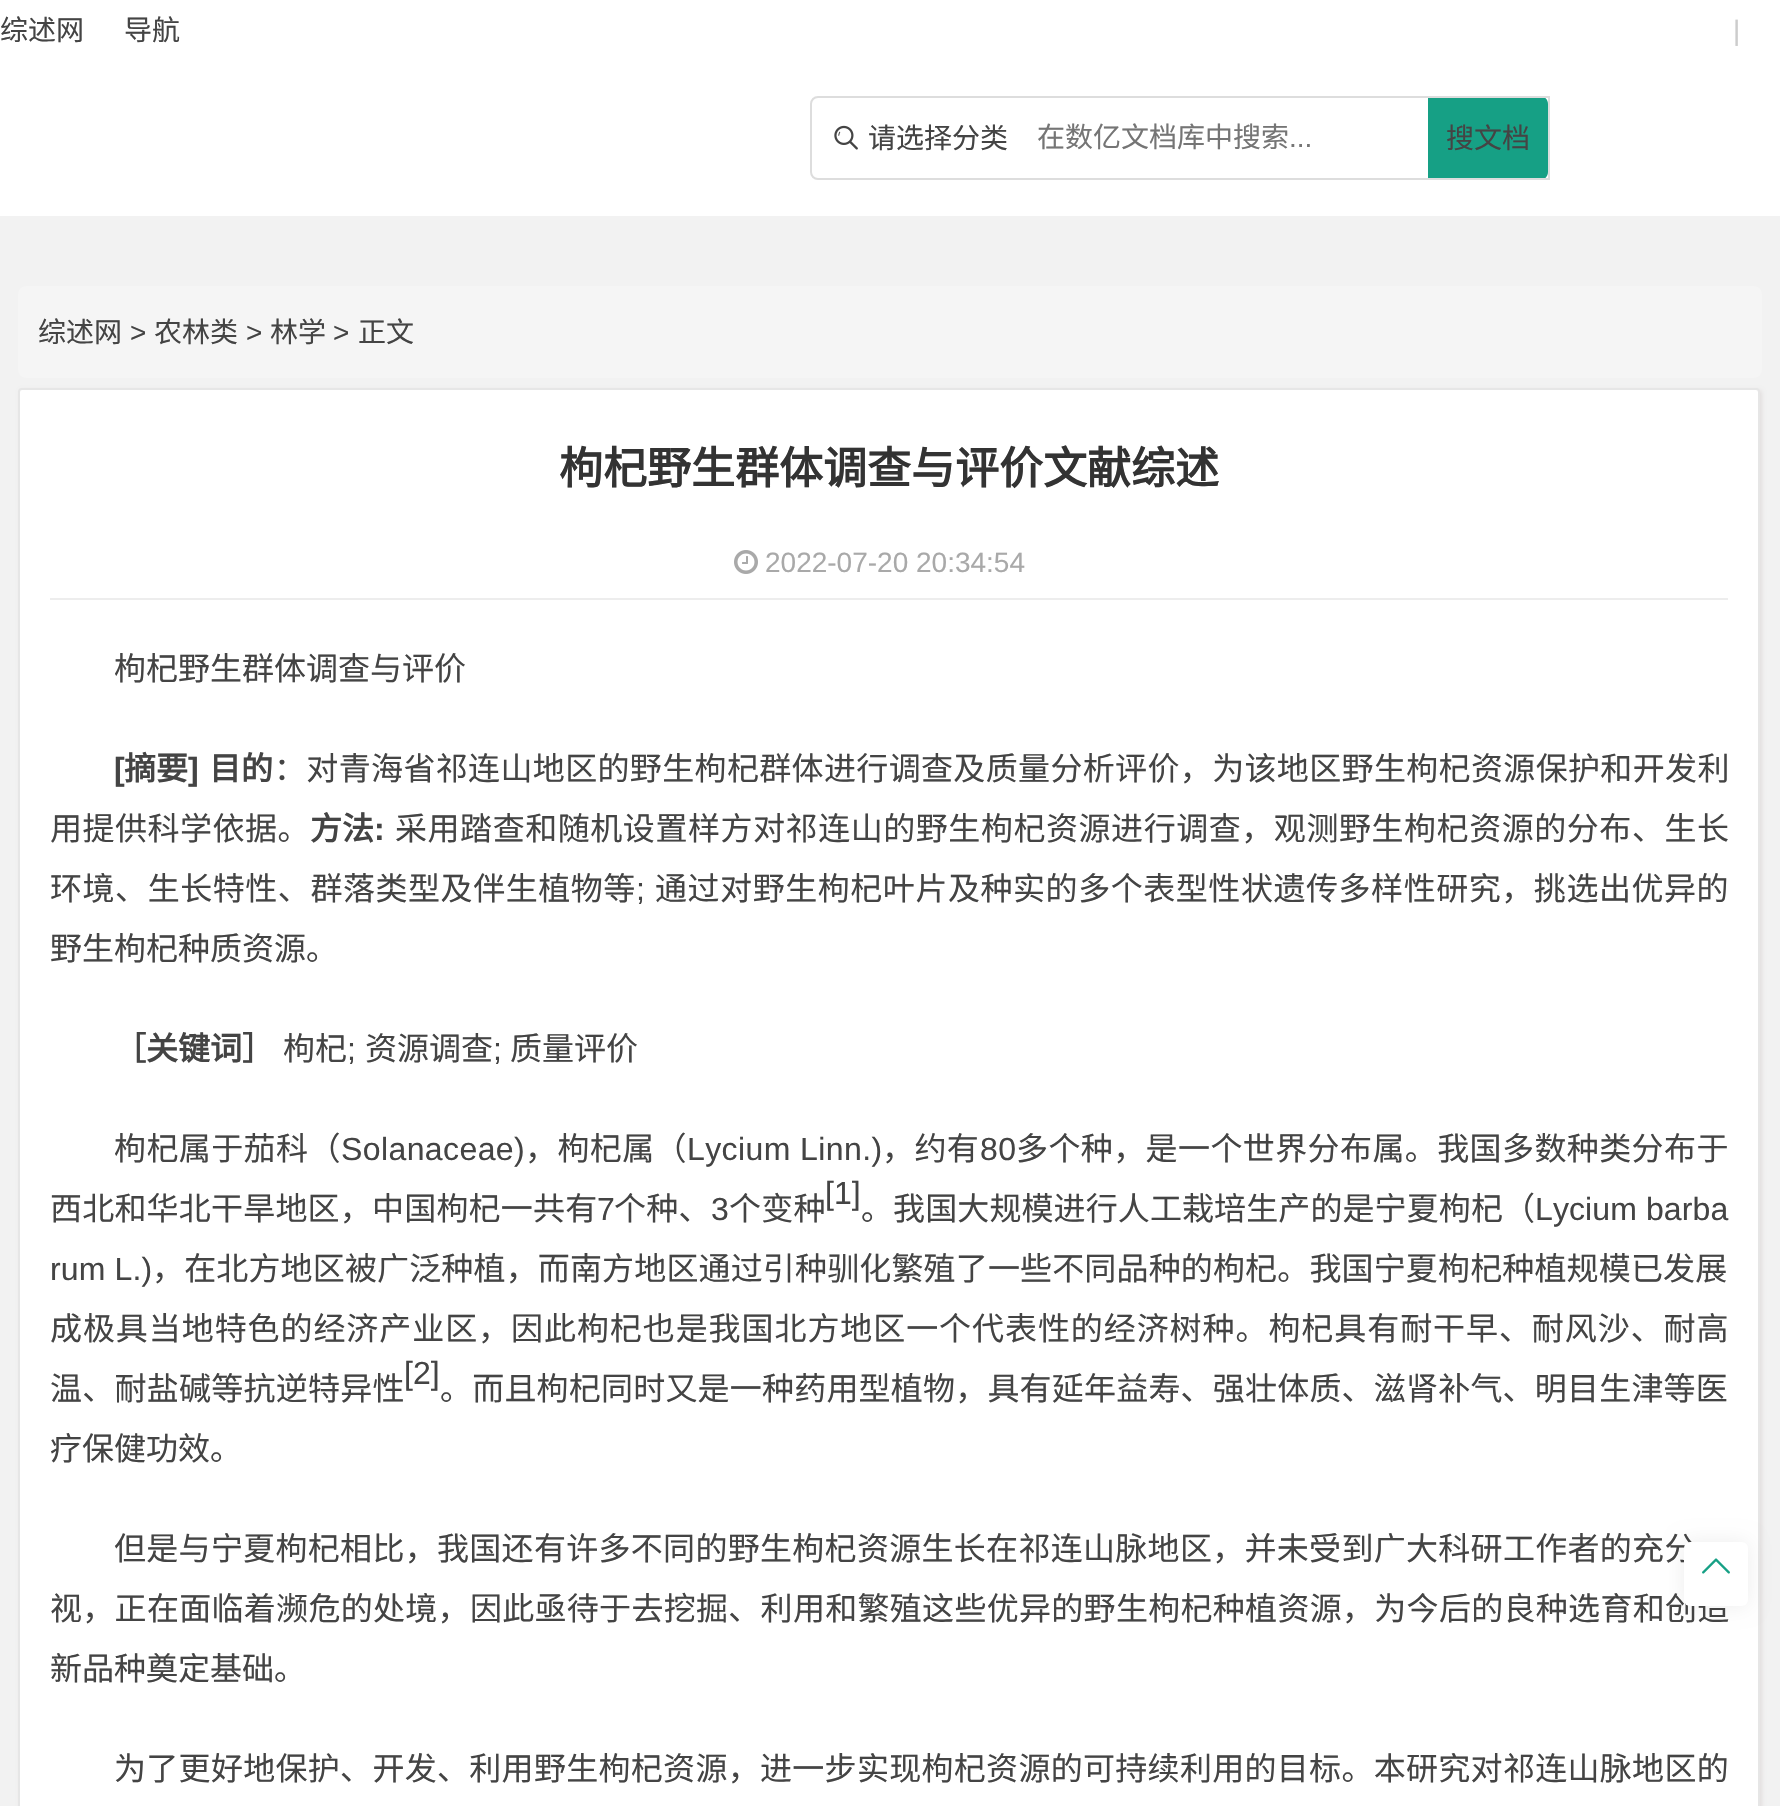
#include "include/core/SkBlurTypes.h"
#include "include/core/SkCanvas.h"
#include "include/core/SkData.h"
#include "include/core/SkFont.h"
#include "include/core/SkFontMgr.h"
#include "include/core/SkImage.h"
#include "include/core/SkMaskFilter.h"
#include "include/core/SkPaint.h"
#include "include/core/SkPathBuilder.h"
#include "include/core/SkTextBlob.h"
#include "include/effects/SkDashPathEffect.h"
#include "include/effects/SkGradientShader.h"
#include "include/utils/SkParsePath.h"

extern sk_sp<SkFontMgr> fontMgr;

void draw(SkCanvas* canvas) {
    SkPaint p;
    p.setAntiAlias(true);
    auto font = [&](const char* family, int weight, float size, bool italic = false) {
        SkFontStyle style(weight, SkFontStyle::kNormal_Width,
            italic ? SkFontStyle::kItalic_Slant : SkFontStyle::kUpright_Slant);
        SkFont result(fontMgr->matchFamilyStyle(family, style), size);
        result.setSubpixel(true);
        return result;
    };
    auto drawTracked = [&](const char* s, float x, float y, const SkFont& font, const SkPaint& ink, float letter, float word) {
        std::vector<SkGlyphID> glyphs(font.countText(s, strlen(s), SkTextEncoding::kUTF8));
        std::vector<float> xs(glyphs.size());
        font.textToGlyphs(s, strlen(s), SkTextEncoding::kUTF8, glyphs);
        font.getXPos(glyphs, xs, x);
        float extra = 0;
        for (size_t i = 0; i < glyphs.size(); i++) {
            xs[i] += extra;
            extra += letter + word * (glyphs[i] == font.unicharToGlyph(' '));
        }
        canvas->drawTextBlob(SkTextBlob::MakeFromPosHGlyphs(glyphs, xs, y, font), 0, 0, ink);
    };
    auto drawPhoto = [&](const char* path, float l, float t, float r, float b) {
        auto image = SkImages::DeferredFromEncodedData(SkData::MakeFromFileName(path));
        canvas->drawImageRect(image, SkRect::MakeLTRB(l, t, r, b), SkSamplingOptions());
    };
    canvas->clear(0xFFF2F2F2);
    p.setColor(0xFFFFFFFF);
    canvas->drawRect(SkRect::MakeLTRB(0, 0, 1780, 216), p);
    auto font1 = font("Noto Sans CJK SC", 400, 28);
    p.setColor(0xFF444444);
    canvas->drawString("综述网", 0, 40, font1, p);
    canvas->drawString("导航", 124, 40, font1, p);
    auto font2 = font("Liberation Sans", 400, 28);
    p.setColor(0xFFCCCCCC);
    canvas->drawString("|", 1733, 40, font2, p);
    p.setStyle(SkPaint::kStroke_Style);
    p.setStrokeWidth(2);
    p.setColor(0xFFDDDDDD);
    canvas->drawPath(SkPathBuilder().moveTo(818, 97).lineTo(1549, 97).lineTo(1549, 179).lineTo(818, 179).cubicTo(814, 179, 811, 176, 811, 172).lineTo(811, 104).cubicTo(811, 100, 814, 97, 818, 97).close().detach(), p);
    drawPhoto("media/1.png", 834, 125, 858, 150);
    p.setStyle(SkPaint::kFill_Style);
    p.setColor(0xFF444444);
    canvas->drawString("请选择分类", 868, 148, font1, p);
    p.setColor(0xFF757575);
    canvas->drawString("在数亿文档库中搜索", 1037, 147, font1, p);
    canvas->drawString("...", 1289, 147, font2, p);
    canvas->save();
    canvas->clipPath(SkPathBuilder().moveTo(818, 98).lineTo(1548, 98).lineTo(1548, 178).lineTo(818, 178).cubicTo(814.5f, 178, 812, 175.5f, 812, 172).lineTo(812, 104).cubicTo(812, 100.5f, 814.5f, 98, 818, 98).close().detach(), true);
    p.setColor(0xFF16A085);
    canvas->drawPath(SkPathBuilder().moveTo(1428, 96).lineTo(1540, 96).cubicTo(1544.5f, 96, 1548, 99.5f, 1548, 104).lineTo(1548, 172).cubicTo(1548, 176.5f, 1544.5f, 180, 1540, 180).lineTo(1428, 180).close().detach(), p);
    canvas->restore();
    p.setColor(0xFF444444);
    canvas->drawString("搜文档", 1446, 148, font1, p);
    p.setColor(0xFFF5F5F5);
    canvas->drawRoundRect(SkRect::MakeLTRB(18, 286, 1762, 378), 8, 8, p);
    p.setColor(0xFF444444);
    canvas->drawString("综述网", 38, 342, font1, p);
    canvas->drawString(">", 130, 342, font2, p);
    canvas->drawString("农林类", 154, 342, font1, p);
    canvas->drawString(">", 246, 342, font2, p);
    canvas->drawString("林学", 270, 342, font1, p);
    canvas->drawString(">", 333, 342, font2, p);
    canvas->drawString("正文", 358, 342, font1, p);
    p.setColor(0xFFE2DEDE);
    p.setMaskFilter(SkMaskFilter::MakeBlur(kNormal_SkBlurStyle, 2));
    canvas->drawRoundRect(SkRect::MakeLTRB(20, 390, 1762, 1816), 4, 4, p);
    p.setMaskFilter(nullptr);
    p.setColor(0xFFFFFFFF);
    canvas->drawRoundRect(SkRect::MakeLTRB(19, 389, 1759, 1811), 3, 3, p);
    p.setStyle(SkPaint::kStroke_Style);
    p.setColor(0xFFE6E6E6);
    canvas->drawRoundRect(SkRect::MakeLTRB(19, 389, 1759, 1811), 3, 3, p);
    auto font3 = font("Noto Sans CJK SC", 700, 44);
    p.setStyle(SkPaint::kFill_Style);
    p.setColor(0xFF333333);
    canvas->drawString("枸杞野生群体调查与评价文献综述", 559, 484, font3, p);
    p.setColor(0xFFEDEDED);
    canvas->drawRect(SkRect::MakeLTRB(50, 598, 1728, 600), p);
    drawPhoto("media/2.png", 734, 550, 758, 574);
    p.setColor(0xFFA9A9A9);
    canvas->drawString("2022-07-20 20:34:54", 765, 572, font2, p);
    auto font4 = font("Noto Sans CJK SC", 400, 32);
    p.setColor(0xFF444444);
    canvas->drawString("枸杞野生群体调查与评价", 114, 680, font4, p);
    auto font5 = font("Liberation Sans", 700, 32);
    canvas->drawString("[", 114, 780, font5, p);
    auto font6 = font("Noto Sans CJK SC", 700, 32);
    canvas->drawString("摘要", 124, 780, font6, p);
    canvas->drawString("]", 188, 780, font5, p);
    canvas->drawString("目的", 209, 780, font6, p);
    drawTracked("：对青海省祁连山地区的野生枸杞群体进行调查及质量分析评价，为该地区野生枸杞资源保护和开发利", 274, 780, font4, p, 0.35f, 0);
    drawTracked("用提供科学依据。", 50, 840, font4, p, 0.5f, 0);
    canvas->drawString("方法", 310, 840, font6, p);
    canvas->drawString(":", 374, 840, font5, p);
    drawTracked("采用踏查和随机设置样方对祁连山的野生枸杞资源进行调查，观测野生枸杞资源的分布、生长", 395, 840, font4, p, 0.55f, 0);
    drawTracked("环境、生长特性、群落类型及伴生植物等", 50, 900, font4, p, 0.55f, 0);
    auto font7 = font("Liberation Sans", 400, 32);
    drawTracked(";", 636, 900, font7, p, 0.55f, 0);
    drawTracked("通过对野生枸杞叶片及种实的多个表型性状遗传多样性研究，挑选出优异的", 655, 900, font4, p, 0.55f, 0);
    canvas->drawString("野生枸杞种质资源。", 50, 960, font4, p);
    canvas->drawString("［关键词］", 114, 1060, font6, p);
    canvas->drawString("枸杞", 283, 1060, font4, p);
    canvas->drawString(";", 347, 1060, font7, p);
    canvas->drawString("资源调查", 365, 1060, font4, p);
    canvas->drawString(";", 493, 1060, font7, p);
    canvas->drawString("质量评价", 510, 1060, font4, p);
    drawTracked("枸杞属于茄科（", 114, 1160, font4, p, 0.4f, 0);
    drawTracked("Solanaceae)", 341, 1160, font7, p, 0.4f, 0);
    drawTracked("，枸杞属（", 525, 1160, font4, p, 0.4f, 0);
    drawTracked("Lycium Linn.)", 687, 1160, font7, p, 0.4f, 0);
    drawTracked("，约有", 882, 1160, font4, p, 0.4f, 0);
    drawTracked("80", 980, 1160, font7, p, 0.4f, 0);
    drawTracked("多个种，是一个世界分布属。我国多数种类分布于", 1016, 1160, font4, p, 0.4f, 0);
    drawTracked("西北和华北干旱地区，中国枸杞一共有", 50, 1220, font4, p, 0.2f, 0);
    drawTracked("7", 597, 1220, font7, p, 0.2f, 0);
    drawTracked("个种、", 614, 1220, font4, p, 0.2f, 0);
    drawTracked("3", 711, 1220, font7, p, 0.2f, 0);
    drawTracked("个变种", 729, 1220, font4, p, 0.2f, 0);
    canvas->drawString("[1]", 825, 1204, font7, p);
    drawTracked("。我国大规模进行人工栽培生产的是宁夏枸杞（", 861, 1220, font4, p, 0.1f, 0);
    drawTracked("Lycium barba", 1535, 1220, font7, p, 0.1f, 0);
    drawTracked("rum L.)", 50, 1280, font7, p, 0.15f, 0);
    drawTracked("，在北方地区被广泛种植，而南方地区通过引种驯化繁殖了一些不同品种的枸杞。我国宁夏枸杞种植规模已发展", 152, 1280, font4, p, 0.15f, 0);
    drawTracked("成极具当地特色的经济产业区，因此枸杞也是我国北方地区一个代表性的经济树种。枸杞具有耐干早、耐风沙、耐高", 50, 1340, font4, p, 0.93f, 0);
    drawTracked("温、耐盐碱等抗逆特异性", 50, 1400, font4, p, 0.25f, 0);
    canvas->drawString("[2]", 404, 1384, font7, p);
    drawTracked("。而且枸杞同时又是一种药用型植物，具有延年益寿、强壮体质、滋肾补气、明目生津等医", 440, 1400, font4, p, 0.2f, 0);
    canvas->drawString("疗保健功效。", 50, 1460, font4, p);
    drawTracked("但是与宁夏枸杞相比，我国还有许多不同的野生枸杞资源生长在祁连山脉地区，并未受到广大科研工作者的充分", 114, 1560, font4, p, 0.3f, 0);
    drawTracked("视，正在面临着濒危的处境，因此亟待于去挖掘、利用和繁殖这些优异的野生枸杞种植资源，为今后的良种选育和创造", 50, 1620, font4, p, 0.3f, 0);
    canvas->drawString("新品种奠定基础。", 50, 1680, font4, p);
    drawTracked("为了更好地保护、开发、利用野生枸杞资源，进一步实现枸杞资源的可持续利用的目标。本研究对祁连山脉地区的", 114, 1780, font4, p, 0.3f, 0);
    p.setColor(0x12000000);
    p.setMaskFilter(SkMaskFilter::MakeBlur(kNormal_SkBlurStyle, 10));
    canvas->drawRoundRect(SkRect::MakeLTRB(1684, 1542, 1748, 1606), 6, 6, p);
    p.setMaskFilter(nullptr);
    p.setColor(0xFFFFFFFF);
    canvas->drawRoundRect(SkRect::MakeLTRB(1684, 1542, 1748, 1606), 6, 6, p);
    drawPhoto("media/3.png", 1702, 1558, 1730, 1574);
}
